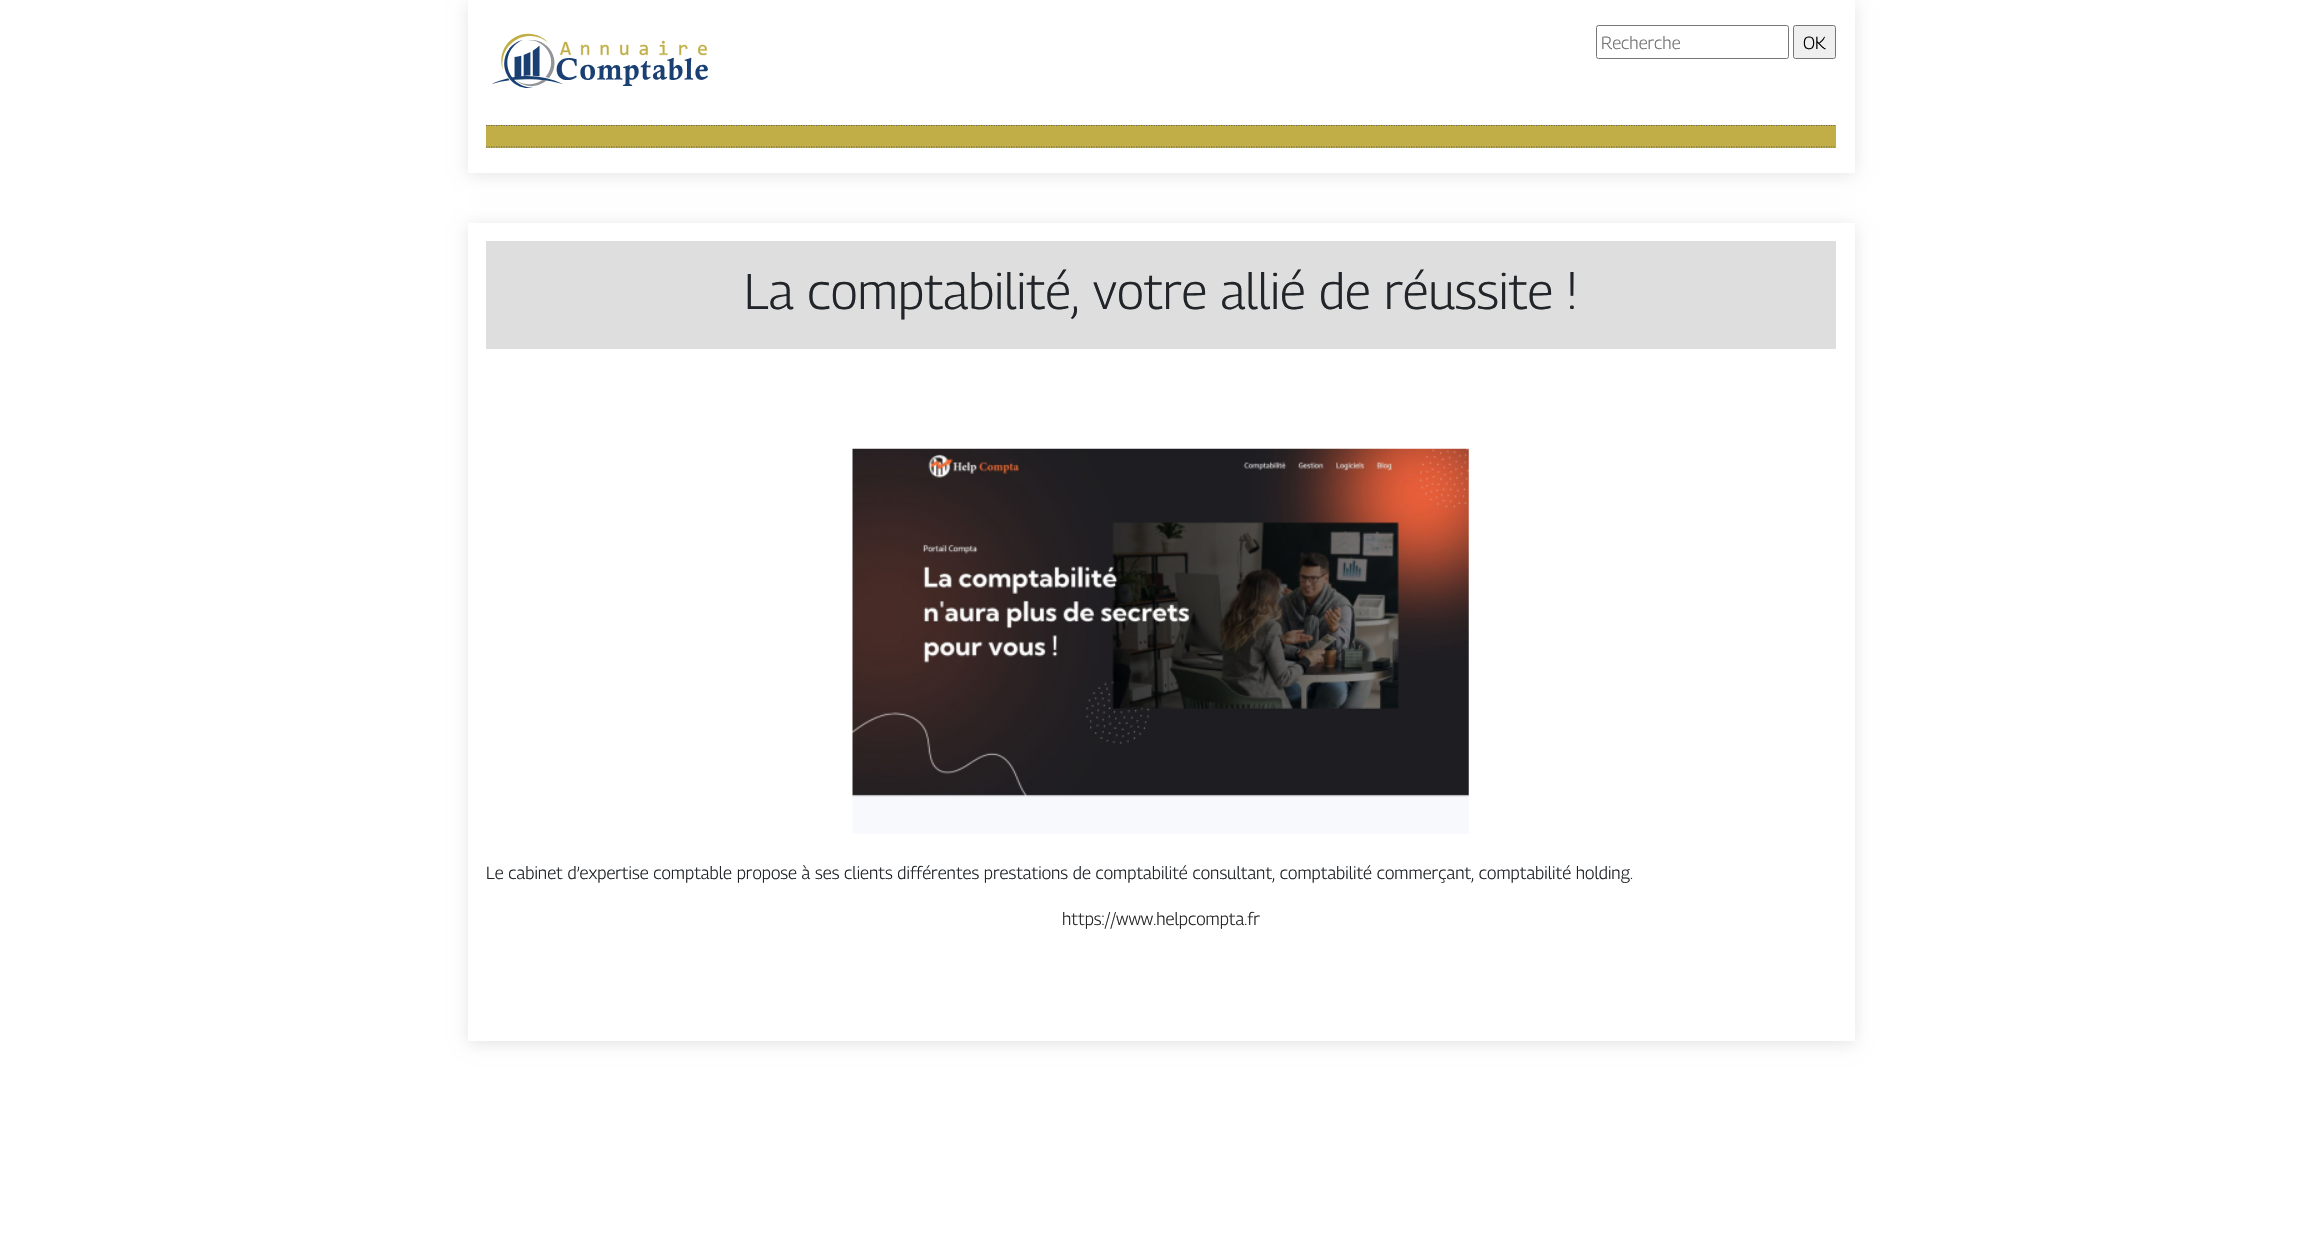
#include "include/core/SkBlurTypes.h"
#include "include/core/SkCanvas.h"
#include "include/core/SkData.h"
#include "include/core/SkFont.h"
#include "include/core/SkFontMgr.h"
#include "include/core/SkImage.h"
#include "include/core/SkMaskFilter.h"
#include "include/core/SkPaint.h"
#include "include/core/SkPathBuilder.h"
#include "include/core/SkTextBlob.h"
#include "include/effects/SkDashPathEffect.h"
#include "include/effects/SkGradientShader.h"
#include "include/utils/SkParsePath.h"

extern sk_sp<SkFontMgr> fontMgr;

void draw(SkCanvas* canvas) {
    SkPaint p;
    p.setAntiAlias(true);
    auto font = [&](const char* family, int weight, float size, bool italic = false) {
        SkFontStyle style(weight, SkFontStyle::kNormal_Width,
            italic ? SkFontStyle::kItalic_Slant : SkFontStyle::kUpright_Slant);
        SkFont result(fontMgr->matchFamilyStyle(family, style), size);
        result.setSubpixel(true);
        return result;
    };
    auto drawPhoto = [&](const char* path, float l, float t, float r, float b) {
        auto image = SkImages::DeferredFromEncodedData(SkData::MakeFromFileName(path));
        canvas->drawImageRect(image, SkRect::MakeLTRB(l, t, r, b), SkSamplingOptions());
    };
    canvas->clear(0xFFFFFFFF);
    p.setColor(0x1A000000);
    p.setMaskFilter(SkMaskFilter::MakeBlur(kNormal_SkBlurStyle, 8));
    canvas->drawRect(SkRect::MakeLTRB(468, 3, 1855, 175), p);
    p.setMaskFilter(nullptr);
    p.setColor(0xFFFFFFFF);
    canvas->drawRect(SkRect::MakeLTRB(468, 0, 1855, 173), p);
    drawPhoto("media/1.png", 491, 33, 708, 88);
    p.setStyle(SkPaint::kStroke_Style);
    p.setStrokeWidth(1);
    p.setColor(0xFF767676);
    canvas->drawRoundRect(SkRect::MakeLTRB(1596.5f, 25.5f, 1788.5f, 58.5f), 2, 2, p);
    auto font1 = font("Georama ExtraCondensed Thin", 100, 17.5f);
    p.setStyle(SkPaint::kFill_Style);
    p.setColor(0xFF757575);
    canvas->drawString("Recherche", 1601, 49, font1, p);
    p.setColor(0xFFEFEFEF);
    canvas->drawRoundRect(SkRect::MakeLTRB(1793.5f, 25.5f, 1835.5f, 58.5f), 2, 2, p);
    p.setStyle(SkPaint::kStroke_Style);
    p.setColor(0xFF767676);
    canvas->drawRoundRect(SkRect::MakeLTRB(1793.5f, 25.5f, 1835.5f, 58.5f), 2, 2, p);
    p.setStyle(SkPaint::kFill_Style);
    p.setColor(0xFF000000);
    canvas->drawString("OK", 1803, 49, font1, p);
    p.setColor(0xFFC1AE46);
    canvas->drawRect(SkRect::MakeLTRB(486, 125, 1836, 148), p);
    p.setStyle(SkPaint::kStroke_Style);
    p.setStrokeWidth(1.2f);
    p.setColor(0xFF666666);
    p.setPathEffect(SkDashPathEffect::Make({{1.25f, 1.25f}}, 0));
    canvas->drawPath(SkPathBuilder().moveTo(486, 125.5f).lineTo(1836, 125.5f).detach(), p);
    p.setPathEffect(nullptr);
    p.setPathEffect(SkDashPathEffect::Make({{1.25f, 1.25f}}, 0));
    canvas->drawPath(SkPathBuilder().moveTo(486, 147).lineTo(1836, 147).detach(), p);
    p.setPathEffect(nullptr);
    canvas->save();
    canvas->clipPath(SkPathBuilder(SkPathFillType::kEvenOdd).moveTo(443, 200).lineTo(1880, 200).lineTo(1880, 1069).lineTo(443, 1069).close().moveTo(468, 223).lineTo(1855, 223).lineTo(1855, 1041).lineTo(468, 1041).close().detach(), true);
    p.setStyle(SkPaint::kFill_Style);
    p.setColor(0x1A000000);
    p.setMaskFilter(SkMaskFilter::MakeBlur(kNormal_SkBlurStyle, 8));
    canvas->drawRect(SkRect::MakeLTRB(468, 225, 1855, 1044), p);
    p.setMaskFilter(nullptr);
    canvas->restore();
    p.setColor(0xFFDEDEDE);
    canvas->drawRect(SkRect::MakeLTRB(486, 241, 1836, 349), p);
    auto font2 = font("Georama ExtraCondensed Thin", 100, 50);
    p.setColor(0xFF212529);
    canvas->drawString("La comptabilité, votre allié de réussite !", 744, 309, font2, p);
    drawPhoto("media/2.png", 852, 448, 1469, 834);
    canvas->drawString("Le cabinet d’expertise comptable propose à ses clients différentes prestations de comptabilité consultant, comptabilité commerçant, comptabilité holding.", 486, 879, font1, p);
    p.setColor(0xFF272727);
    canvas->drawString("https://www.helpcompta.fr", 1062, 925, font1, p);
}
